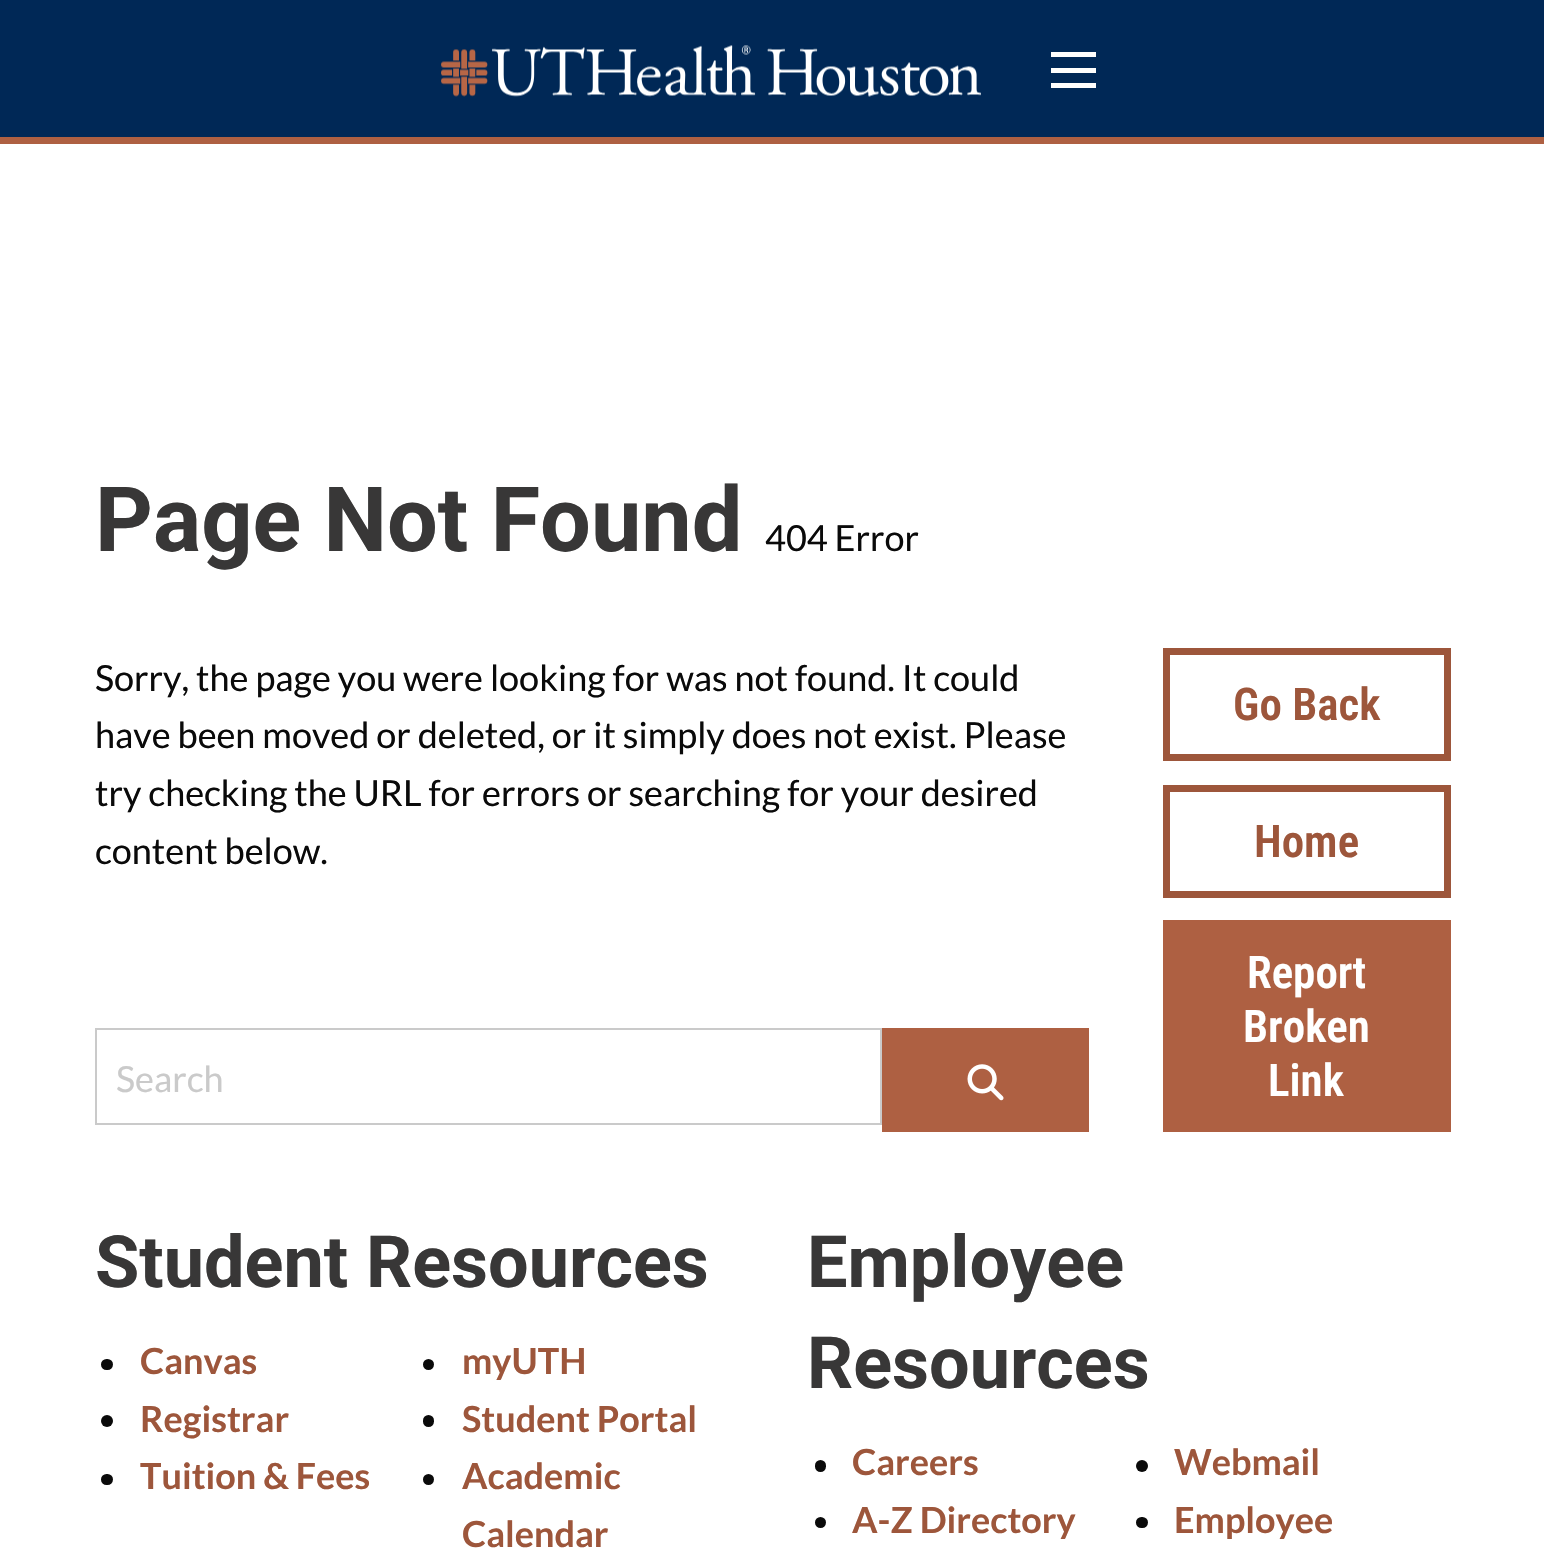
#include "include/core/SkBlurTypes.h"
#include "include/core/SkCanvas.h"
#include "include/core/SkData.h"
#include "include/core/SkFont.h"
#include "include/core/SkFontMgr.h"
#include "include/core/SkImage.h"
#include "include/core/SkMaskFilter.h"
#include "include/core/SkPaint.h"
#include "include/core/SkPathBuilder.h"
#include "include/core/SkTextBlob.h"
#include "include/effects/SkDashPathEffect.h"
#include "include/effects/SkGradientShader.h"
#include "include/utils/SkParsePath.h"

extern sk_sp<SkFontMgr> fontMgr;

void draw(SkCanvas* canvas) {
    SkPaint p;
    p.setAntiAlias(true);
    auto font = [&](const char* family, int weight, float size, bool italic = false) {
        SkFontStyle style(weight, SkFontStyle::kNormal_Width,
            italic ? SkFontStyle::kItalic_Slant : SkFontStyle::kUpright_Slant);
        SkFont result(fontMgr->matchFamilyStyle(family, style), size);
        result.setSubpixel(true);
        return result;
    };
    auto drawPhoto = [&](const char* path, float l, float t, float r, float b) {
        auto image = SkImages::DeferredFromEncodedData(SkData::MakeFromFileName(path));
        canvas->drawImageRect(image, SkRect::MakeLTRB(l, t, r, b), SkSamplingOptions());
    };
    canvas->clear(0xFFFFFFFF);
    p.setColor(0xFF002856);
    canvas->drawRect(SkRect::MakeLTRB(0, 0, 1544, 137), p);
    p.setColor(0xFFAE6042);
    canvas->drawRect(SkRect::MakeLTRB(0, 137, 1544, 144), p);
    drawPhoto("media/1.png", 441, 45, 981, 97);
    {
        const struct { float l, t, r, b; SkColor color; } items[] = {
            {1051, 83, 1096, 88, 0xFFFEFEFE},
            {1051, 68, 1096, 73, 0xFFFEFEFE},
            {1051, 52, 1096, 57, 0xFFFEFEFE},
        };
        for (auto [l, t, r, b, color] : items) {
            p.setColor(color);
            canvas->drawRect(SkRect::MakeLTRB(l, t, r, b), p);
        }
    }
    auto font1 = font("Roboto", 700, 90);
    p.setColor(0xFF383737);
    canvas->drawString("Page Not Found", 95, 551, font1, p);
    auto font2 = font("Lato", 400, 36);
    p.setColor(0xFF0A0A0A);
    {
        const struct { const char* s; float x, y; } items[] = {
            {"404 Error", 765, 551},
            {"Sorry, the page you were looking for was not found. It could", 95, 691},
            {"have been moved or deleted, or it simply does not exist. Please", 95, 748},
            {"try checking the URL for errors or searching for your desired", 95, 806},
            {"content below.", 95, 864},
        };
        for (auto [s, x, y] : items) {
            canvas->drawString(s, x, y, font2, p);
        }
    }
    p.setStyle(SkPaint::kStroke_Style);
    p.setStrokeWidth(2);
    p.setColor(0xFFCACACA);
    canvas->drawRect(SkRect::MakeLTRB(96, 1029, 881, 1124), p);
    p.setStyle(SkPaint::kFill_Style);
    canvas->drawString("Search", 116, 1092, font2, p);
    p.setColor(0xFFAE6042);
    canvas->drawRect(SkRect::MakeLTRB(882, 1028, 1089, 1132), p);
    drawPhoto("media/2.png", 967, 1064, 1004, 1101);
    p.setStyle(SkPaint::kStroke_Style);
    p.setStrokeWidth(7);
    p.setColor(0xFF9D563B);
    canvas->drawRect(SkRect::MakeLTRB(1166.5f, 651.5f, 1447.5f, 757.5f), p);
    auto font3 = font("Roboto Condensed", 600, 45);
    p.setStyle(SkPaint::kFill_Style);
    canvas->drawString("Go Back", 1233, 720, font3, p);
    p.setStyle(SkPaint::kStroke_Style);
    canvas->drawRect(SkRect::MakeLTRB(1166.5f, 788.5f, 1447.5f, 894.5f), p);
    p.setStyle(SkPaint::kFill_Style);
    canvas->drawString("Home", 1254, 857, font3, p);
    p.setColor(0xFFAE6042);
    canvas->drawRect(SkRect::MakeLTRB(1163, 920, 1451, 1132), p);
    p.setColor(0xFFFFFFFF);
    {
        const struct { const char* s; float x, y; } items[] = {
            {"Report", 1247, 988},
            {"Broken", 1243, 1042},
            {"Link", 1268, 1096},
        };
        for (auto [s, x, y] : items) {
            canvas->drawString(s, x, y, font3, p);
        }
    }
    auto font4 = font("Roboto", 700, 72);
    p.setColor(0xFF383737);
    canvas->drawString("Student Resources", 95, 1287, font4, p);
    p.setColor(0xFF0A0A0A);
    canvas->drawRoundRect(SkRect::MakeLTRB(101, 1359, 113, 1370), 5.5f, 5.5f, p);
    auto font5 = font("Lato", 700, 36);
    p.setColor(0xFF9D563B);
    canvas->drawString("Canvas", 140, 1374, font5, p);
    p.setColor(0xFF0A0A0A);
    canvas->drawCircle(107, 1421, 6, p);
    p.setColor(0xFF9D563B);
    canvas->drawString("Registrar", 140, 1432, font5, p);
    p.setColor(0xFF0A0A0A);
    canvas->drawRoundRect(SkRect::MakeLTRB(101, 1474, 113, 1485), 5.5f, 5.5f, p);
    p.setColor(0xFF9D563B);
    canvas->drawString("Tuition & Fees", 140, 1489, font5, p);
    p.setColor(0xFF0A0A0A);
    canvas->drawCircle(428.5f, 1364.5f, 5.5f, p);
    p.setColor(0xFF9D563B);
    canvas->drawString("myUTH", 462, 1374, font5, p);
    p.setColor(0xFF0A0A0A);
    canvas->drawRoundRect(SkRect::MakeLTRB(423, 1415, 434, 1427), 5.5f, 5.5f, p);
    p.setColor(0xFF9D563B);
    canvas->drawString("Student Portal", 462, 1432, font5, p);
    p.setColor(0xFF0A0A0A);
    canvas->drawCircle(428.5f, 1479.5f, 5.5f, p);
    p.setColor(0xFF9D563B);
    canvas->drawString("Academic", 462, 1489, font5, p);
    canvas->drawString("Calendar", 462, 1547, font5, p);
    p.setColor(0xFF383737);
    canvas->drawString("Employee", 807, 1287, font4, p);
    canvas->drawString("Resources", 807, 1388, font4, p);
    p.setColor(0xFF0A0A0A);
    canvas->drawRoundRect(SkRect::MakeLTRB(815, 1460, 826, 1472), 5.5f, 5.5f, p);
    p.setColor(0xFF9D563B);
    canvas->drawString("Careers", 852, 1475, font5, p);
    p.setColor(0xFF0A0A0A);
    canvas->drawCircle(820.5f, 1522.5f, 5.5f, p);
    p.setColor(0xFF9D563B);
    canvas->drawString("A-Z Directory", 852, 1533, font5, p);
    p.setColor(0xFF0A0A0A);
    canvas->drawCircle(1142, 1466, 6, p);
    p.setColor(0xFF9D563B);
    canvas->drawString("Webmail", 1174, 1475, font5, p);
    p.setColor(0xFF0A0A0A);
    canvas->drawRoundRect(SkRect::MakeLTRB(1136, 1517, 1148, 1528), 5.5f, 5.5f, p);
    p.setColor(0xFF9D563B);
    canvas->drawString("Employee", 1174, 1533, font5, p);
}
